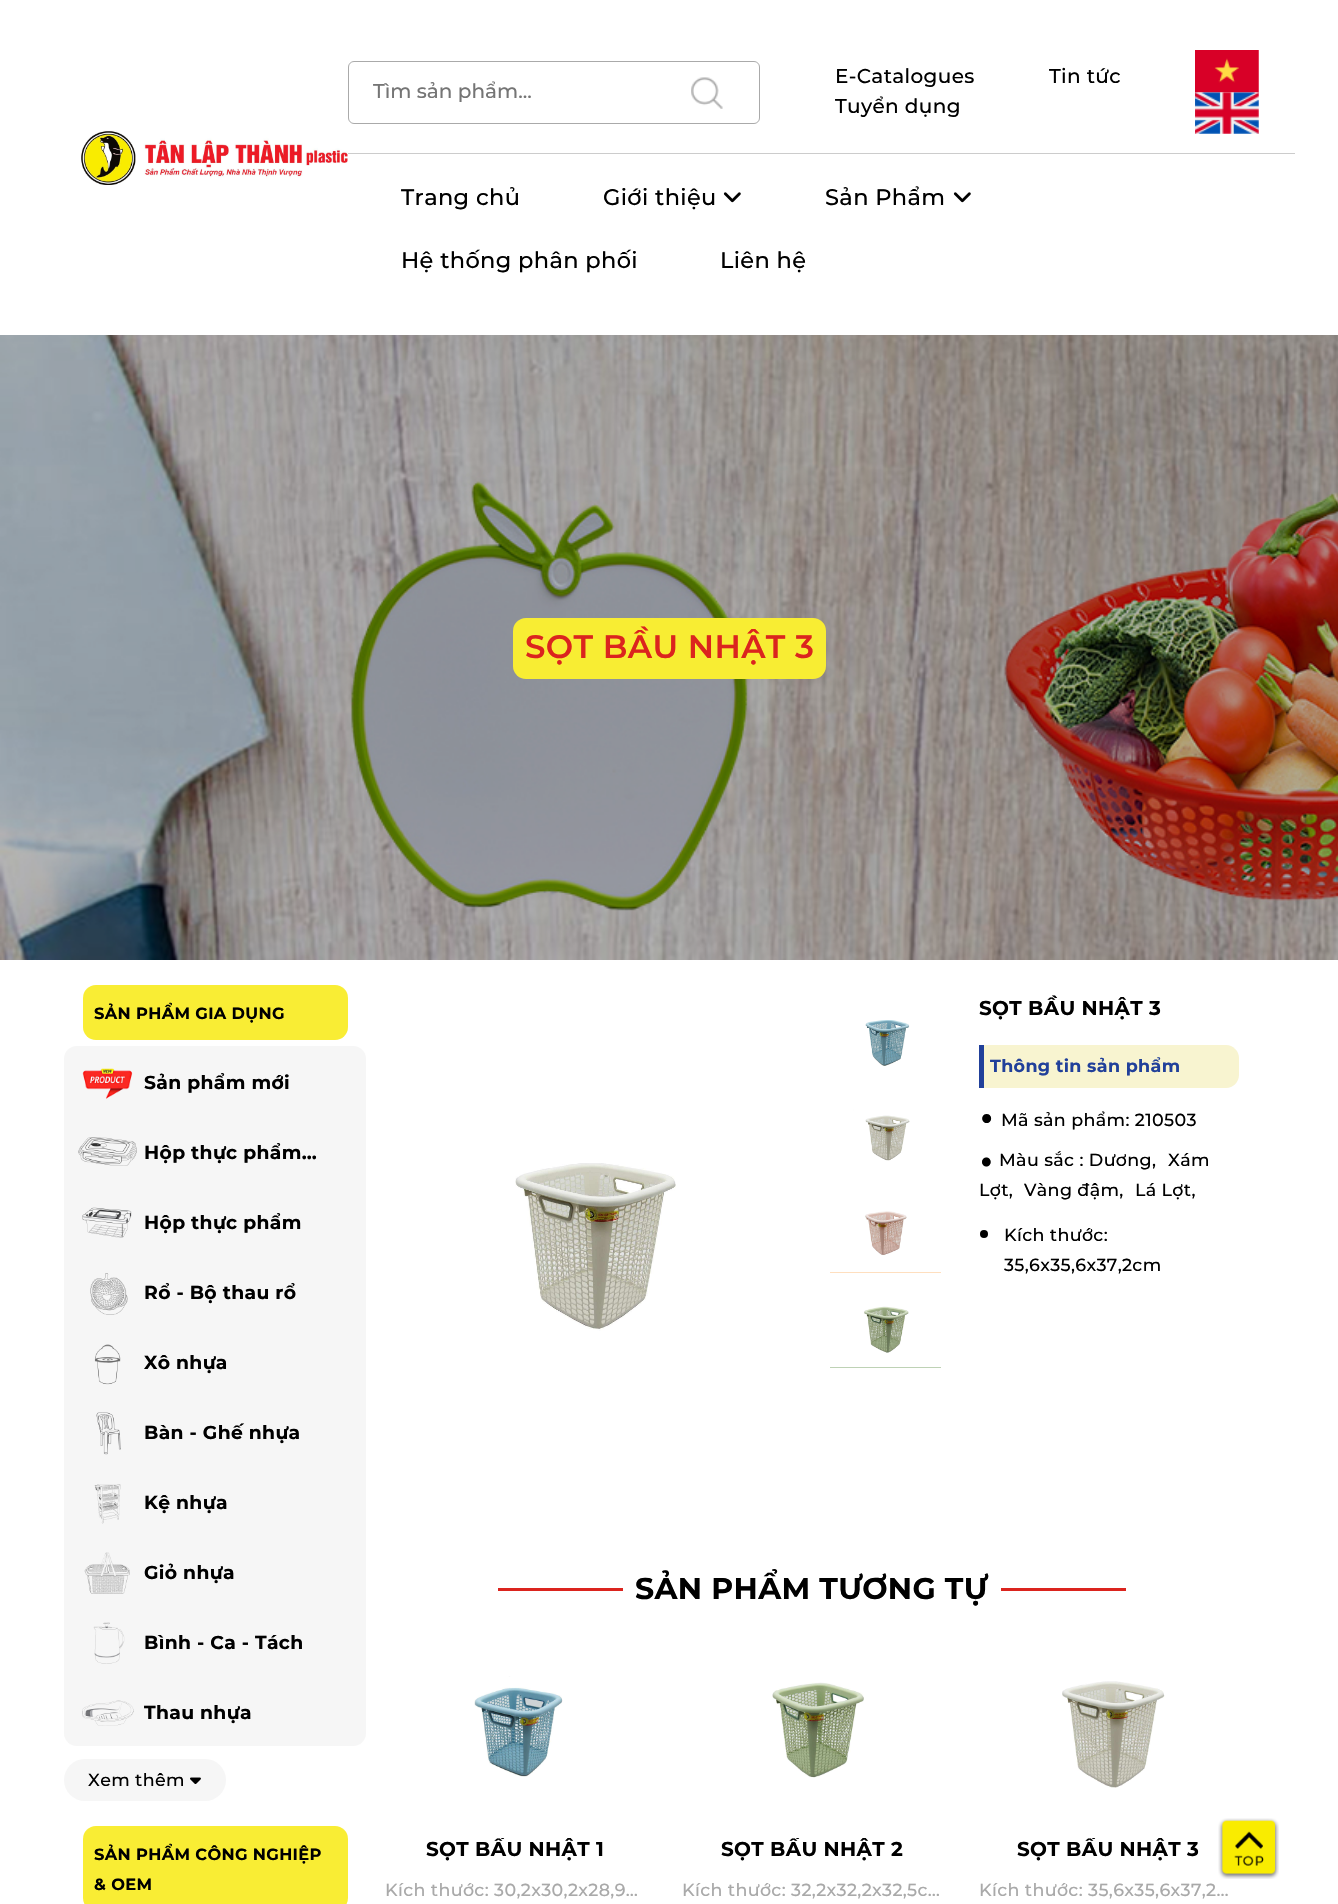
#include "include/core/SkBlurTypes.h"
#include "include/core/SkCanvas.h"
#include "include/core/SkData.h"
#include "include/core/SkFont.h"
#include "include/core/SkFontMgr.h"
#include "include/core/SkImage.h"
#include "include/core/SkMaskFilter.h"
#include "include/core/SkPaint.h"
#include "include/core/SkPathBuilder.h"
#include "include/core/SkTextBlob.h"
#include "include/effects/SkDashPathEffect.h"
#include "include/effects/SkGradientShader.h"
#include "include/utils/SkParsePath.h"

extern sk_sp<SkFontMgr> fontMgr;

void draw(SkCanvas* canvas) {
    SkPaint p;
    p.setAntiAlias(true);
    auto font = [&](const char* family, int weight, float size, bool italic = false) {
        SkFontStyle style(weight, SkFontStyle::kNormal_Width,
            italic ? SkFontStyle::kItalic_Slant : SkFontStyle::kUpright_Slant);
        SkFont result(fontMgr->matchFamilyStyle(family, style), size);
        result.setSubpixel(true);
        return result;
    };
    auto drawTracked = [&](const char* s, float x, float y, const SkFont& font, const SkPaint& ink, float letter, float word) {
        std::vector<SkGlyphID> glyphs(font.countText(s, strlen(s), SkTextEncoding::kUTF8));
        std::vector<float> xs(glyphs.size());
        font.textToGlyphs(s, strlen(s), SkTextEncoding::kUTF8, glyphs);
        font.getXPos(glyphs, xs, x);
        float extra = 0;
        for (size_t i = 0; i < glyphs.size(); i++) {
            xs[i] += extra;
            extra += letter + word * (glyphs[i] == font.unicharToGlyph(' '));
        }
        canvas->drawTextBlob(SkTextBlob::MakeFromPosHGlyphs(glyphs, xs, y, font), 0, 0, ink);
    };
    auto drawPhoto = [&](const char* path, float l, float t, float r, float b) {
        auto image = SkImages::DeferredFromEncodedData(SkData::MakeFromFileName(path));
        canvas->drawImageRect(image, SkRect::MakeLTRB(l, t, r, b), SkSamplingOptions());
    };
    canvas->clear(0xFFFFFFFF);
    drawPhoto("media/1.png", 81, 131, 348, 185);
    p.setStyle(SkPaint::kStroke_Style);
    p.setStrokeWidth(1);
    p.setColor(0xFFAAAAAA);
    canvas->drawRoundRect(SkRect::MakeLTRB(348.5f, 61.5f, 759.5f, 123.5f), 5.5f, 5.5f, p);
    auto font1 = font("Montserrat", 500, 20);
    p.setStyle(SkPaint::kFill_Style);
    p.setColor(0xFF757575);
    canvas->drawString("Tìm sản phẩm...", 373, 98, font1, p);
    drawPhoto("media/2.png", 691, 77, 723, 109);
    p.setColor(0xFF000000);
    {
        const struct { const char* s; float x, y; } items[] = {
            {"E-Catalogues", 835, 83},
            {"Tin tức", 1049, 83},
            {"Tuyển dụng", 835, 113},
        };
        for (auto [s, x, y] : items) {
            drawTracked(s, x, y, font1, p, 0.35f, 0);
        }
    }
    drawPhoto("media/3.png", 1195, 50, 1259, 93);
    drawPhoto("media/4.png", 1195, 92, 1259, 134);
    p.setColor(0xFFCCCCCC);
    canvas->drawRect(SkRect::MakeLTRB(348, 153, 1295, 154), p);
    auto font2 = font("Montserrat", 500, 22.5f);
    p.setColor(0xFF000000);
    drawTracked("Trang chủ", 401, 205, font2, p, 0.35f, 0);
    drawTracked("Giới thiệu", 603, 205, font2, p, 0.35f, 0);
    drawPhoto("media/5.png", 723, 192, 741, 203);
    drawTracked("Sản Phẩm", 825, 205, font2, p, 0.35f, 0);
    drawPhoto("media/5.png", 953, 192, 971, 203);
    drawTracked("Hệ thống phân phối", 401, 268, font2, p, 0.35f, 0);
    drawTracked("Liên hệ", 720, 268, font2, p, 0.35f, 0);
    drawPhoto("media/6.png", 0, 335, 1338, 960);
    p.setColor(0xFFF8ED33);
    canvas->drawRoundRect(SkRect::MakeLTRB(513, 618, 826, 679), 13, 13, p);
    auto font3 = font("Montserrat", 600, 32.5f);
    p.setColor(0xFFDB241E);
    drawTracked("SỌT BẦU NHẬT 3", 525, 658, font3, p, 0.35f, 0);
    p.setColor(0xFFF9ED34);
    canvas->drawRoundRect(SkRect::MakeLTRB(83, 985, 348, 1040), 13, 13, p);
    auto font4 = font("Montserrat", 700, 16.25f);
    p.setColor(0xFF000000);
    drawTracked("SẢN PHẨM GIA DỤNG", 94, 1019, font4, p, 0.35f, 0);
    p.setColor(0xFFF6F6F6);
    canvas->drawRoundRect(SkRect::MakeLTRB(64, 1046, 366, 1746), 13, 13, p);
    drawPhoto("media/7.png", 82, 1068, 133, 1099);
    auto font5 = font("Montserrat", 700, 18.75f);
    p.setColor(0xFF000000);
    drawTracked("Sản phẩm mới", 144, 1089, font5, p, 0.35f, 0);
    drawPhoto("media/8.png", 78, 1137, 137, 1166);
    drawTracked("Hộp thực phẩm…", 144, 1159, font5, p, 0.35f, 0);
    drawPhoto("media/9.png", 82, 1207, 132, 1238);
    drawTracked("Hộp thực phẩm", 144, 1229, font5, p, 0.35f, 0);
    drawPhoto("media/10.png", 90, 1273, 128, 1315);
    drawTracked("Rổ - Bộ thau rổ", 144, 1299, font5, p, 0.35f, 0);
    drawPhoto("media/11.png", 94, 1344, 121, 1385);
    drawTracked("Xô nhựa", 144, 1369, font5, p, 0.35f, 0);
    drawPhoto("media/12.png", 96, 1412, 121, 1455);
    drawTracked("Bàn - Ghế nhựa", 144, 1439, font5, p, 0.35f, 0);
    drawPhoto("media/13.png", 94, 1484, 121, 1524);
    drawTracked("Kệ nhựa", 144, 1509, font5, p, 0.35f, 0);
    drawPhoto("media/14.png", 84, 1552, 130, 1594);
    drawTracked("Giỏ nhựa", 144, 1579, font5, p, 0.35f, 0);
    drawPhoto("media/15.png", 93, 1622, 125, 1664);
    drawTracked("Bình - Ca - Tách", 144, 1649, font5, p, 0.35f, 0);
    drawPhoto("media/16.png", 82, 1700, 134, 1726);
    drawTracked("Thau nhựa", 144, 1719, font5, p, 0.35f, 0);
    p.setColor(0xFFF6F6F6);
    canvas->drawRoundRect(SkRect::MakeLTRB(64, 1759, 226, 1801), 21, 21, p);
    auto font6 = font("Montserrat", 500, 17.5f);
    p.setColor(0xFF000000);
    drawTracked("Xem thêm", 88, 1786, font6, p, 0.35f, 0);
    drawPhoto("media/17.png", 190, 1777, 201, 1784);
    p.setColor(0xFFF9ED34);
    canvas->drawRoundRect(SkRect::MakeLTRB(83, 1826, 348, 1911), 13, 13, p);
    p.setColor(0xFF000000);
    drawTracked("SẢN PHẨM CÔNG NGHIỆP", 94, 1860, font4, p, 0.35f, 0);
    drawTracked("& OEM", 94, 1890, font4, p, 0.35f, 0);
    drawPhoto("media/18.png", 515, 1163, 676, 1331);
    drawPhoto("media/19.png", 830, 998, 941, 1081);
    drawPhoto("media/20.png", 830, 1094, 941, 1176);
    p.setColor(0xFFFFBE7D);
    canvas->drawRect(SkRect::MakeLTRB(830, 1272, 941, 1273), p);
    drawPhoto("media/21.png", 830, 1189, 941, 1273);
    p.setColor(0xFF7CA46A);
    canvas->drawRect(SkRect::MakeLTRB(830, 1367, 941, 1368), p);
    drawPhoto("media/22.png", 830, 1285, 941, 1368);
    auto font7 = font("Montserrat", 700, 20);
    p.setColor(0xFF000000);
    drawTracked("SỌT BẦU NHẬT 3", 979, 1015, font7, p, 0.35f, 0);
    p.setColor(0xFF21409A);
    canvas->drawRect(SkRect::MakeLTRB(979, 1045, 984, 1088), p);
    p.setColor(0xFFF8F4D0);
    canvas->drawPath(SkPathBuilder().moveTo(984, 1045).lineTo(1226, 1045).cubicTo(1233, 1045, 1239, 1051, 1239, 1058).lineTo(1239, 1075).cubicTo(1239, 1082, 1233, 1088, 1226, 1088).lineTo(984, 1088).close().detach(), p);
    auto font8 = font("Montserrat", 700, 17.5f);
    p.setColor(0xFF21409A);
    drawTracked("Thông tin sản phẩm", 990, 1072, font8, p, 0.35f, 0);
    auto font9 = font("Montserrat", 500, 49);
    p.setColor(0xFF000000);
    drawTracked("•", 979, 1132, font9, p, 0.35f, 0);
    drawTracked("Mã sản phẩm: 210503", 1001, 1126, font6, p, 0.35f, 0);
    auto font10 = font("Montserrat", 500, 65);
    drawTracked(".", 979, 1166, font10, p, 0.35f, 0);
    {
        const struct { const char* s; float x, y; } items[] = {
            {"Màu sắc : Dương,", 999, 1166},
            {"Xám", 1168, 1166},
            {"Lợt,", 979, 1196},
            {"Vàng đậm,", 1024, 1196},
            {"Lá Lợt,", 1135, 1196},
        };
        for (auto [s, x, y] : items) {
            drawTracked(s, x, y, font6, p, 0.35f, 0);
        }
    }
    canvas->drawCircle(984, 1234, 4, p);
    drawTracked("Kích thước:", 1004, 1241, font6, p, 0.35f, 0);
    drawTracked("35,6x35,6x37,2cm", 1004, 1271, font6, p, 0.35f, 0);
    p.setColor(0xFFDB241E);
    canvas->drawRect(SkRect::MakeLTRB(498, 1588, 623, 1591), p);
    auto font11 = font("Montserrat", 700, 30);
    p.setColor(0xFF000000);
    drawTracked("SẢN PHẨM TƯƠNG TỰ", 635, 1599, font11, p, 0.35f, 0);
    p.setColor(0xFFDB241E);
    canvas->drawRect(SkRect::MakeLTRB(1001, 1588, 1126, 1591), p);
    drawPhoto("media/23.png", 474, 1676, 563, 1777);
    canvas->save();
    canvas->clipRect(SkRect::MakeLTRB(385, 1838, 645, 1863));
    p.setColor(0xFF000000);
    drawTracked("SỌT BẦU NHẬT 1", 426, 1856, font7, p, 0.35f, 0);
    canvas->restore();
    p.setColor(0xFFA9A9A9);
    drawTracked("Kích thước: 30,2x30,2x28,9…", 385, 1896, font6, p, 0.35f, 0);
    drawPhoto("media/24.png", 772, 1682, 864, 1778);
    canvas->save();
    canvas->clipRect(SkRect::MakeLTRB(683, 1838, 941, 1863));
    p.setColor(0xFF000000);
    drawTracked("SỌT BẦU NHẬT 2", 721, 1856, font7, p, 0.35f, 0);
    canvas->restore();
    p.setColor(0xFFA9A9A9);
    drawTracked("Kích thước: 32,2x32,2x32,5c…", 682, 1896, font6, p, 0.35f, 0);
    drawPhoto("media/25.png", 1062, 1681, 1165, 1788);
    canvas->save();
    canvas->clipRect(SkRect::MakeLTRB(979, 1838, 1239, 1863));
    p.setColor(0xFF000000);
    drawTracked("SỌT BẦU NHẬT 3", 1017, 1856, font7, p, 0.35f, 0);
    canvas->restore();
    p.setColor(0xFFA9A9A9);
    drawTracked("Kích thước: 35,6x35,6x37,2…", 979, 1896, font6, p, 0.35f, 0);
    drawPhoto("media/26.png", 1218, 1818, 1279, 1879);
}
